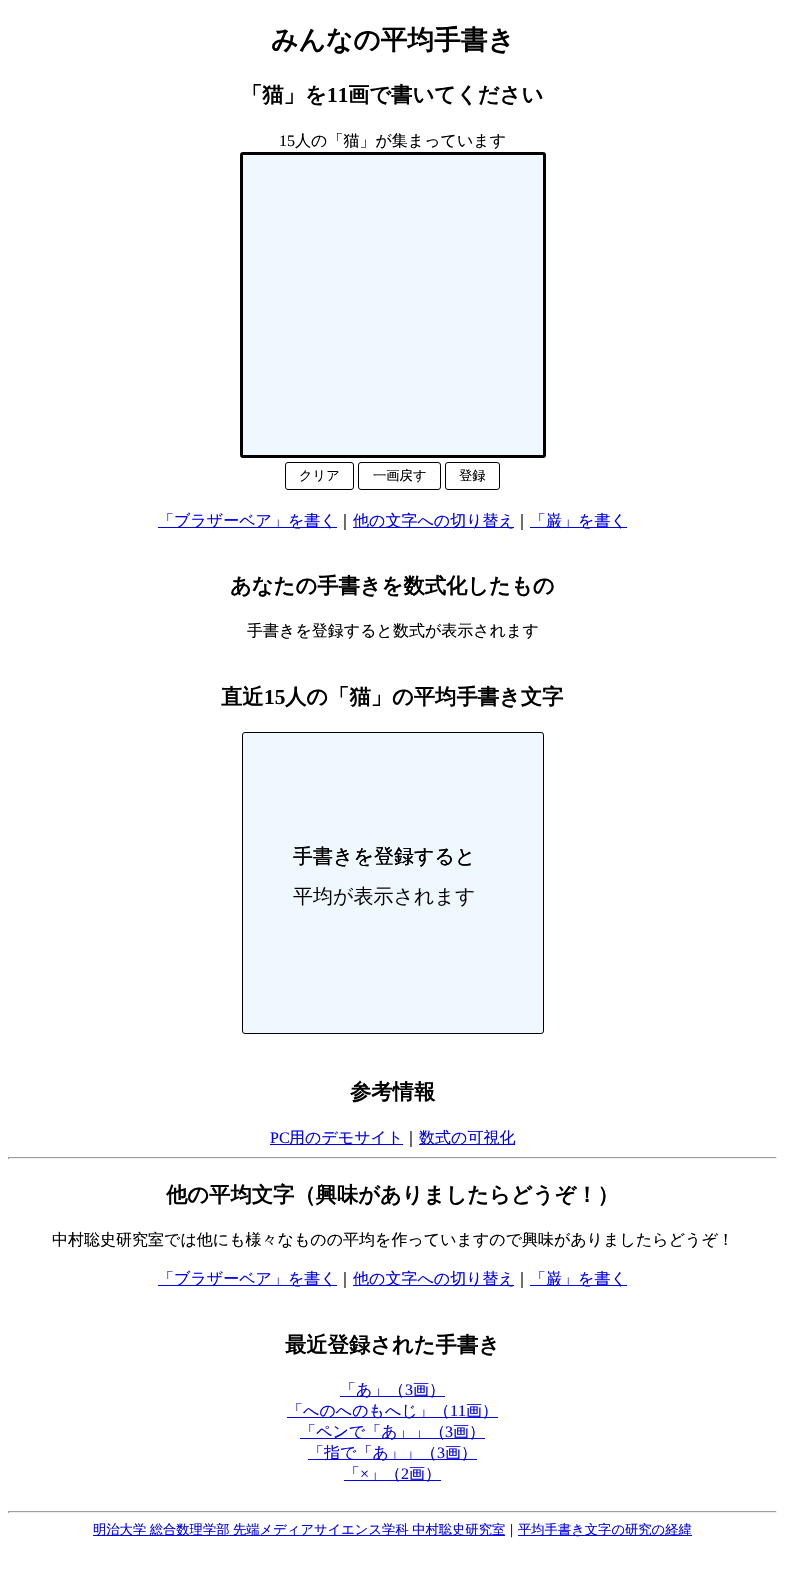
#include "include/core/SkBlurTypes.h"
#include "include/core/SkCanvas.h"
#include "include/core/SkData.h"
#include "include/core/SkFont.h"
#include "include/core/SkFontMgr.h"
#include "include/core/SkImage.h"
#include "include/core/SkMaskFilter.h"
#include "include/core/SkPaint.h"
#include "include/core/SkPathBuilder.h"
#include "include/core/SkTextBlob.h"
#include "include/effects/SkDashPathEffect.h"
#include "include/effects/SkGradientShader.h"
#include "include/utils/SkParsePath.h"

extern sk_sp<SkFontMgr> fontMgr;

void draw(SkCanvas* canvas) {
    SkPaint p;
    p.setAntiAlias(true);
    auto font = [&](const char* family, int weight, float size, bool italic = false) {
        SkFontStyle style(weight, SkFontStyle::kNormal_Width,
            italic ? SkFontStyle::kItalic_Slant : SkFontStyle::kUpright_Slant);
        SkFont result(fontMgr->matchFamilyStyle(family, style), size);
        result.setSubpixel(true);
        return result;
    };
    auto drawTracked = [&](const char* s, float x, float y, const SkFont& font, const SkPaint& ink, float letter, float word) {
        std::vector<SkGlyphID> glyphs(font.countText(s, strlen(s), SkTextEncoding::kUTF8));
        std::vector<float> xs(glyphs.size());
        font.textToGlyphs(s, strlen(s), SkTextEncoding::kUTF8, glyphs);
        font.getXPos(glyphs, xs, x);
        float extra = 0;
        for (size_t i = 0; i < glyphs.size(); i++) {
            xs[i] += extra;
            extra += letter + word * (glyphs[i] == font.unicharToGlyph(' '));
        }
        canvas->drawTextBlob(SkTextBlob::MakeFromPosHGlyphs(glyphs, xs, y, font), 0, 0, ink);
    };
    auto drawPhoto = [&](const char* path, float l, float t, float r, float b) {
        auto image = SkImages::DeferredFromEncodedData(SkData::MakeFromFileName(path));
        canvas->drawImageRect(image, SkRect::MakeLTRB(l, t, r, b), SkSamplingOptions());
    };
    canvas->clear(0xFFFFFFFF);
    auto font1 = font("WenQuanYi Zen Hei", 700, 26.75f);
    p.setColor(0xFF000000);
    canvas->drawString("みんなの平均手書き", 271, 49, font1, p);
    auto font2 = font("WenQuanYi Zen Hei", 700, 21.3f);
    canvas->drawString("「猫」を", 241, 102, font2, p);
    auto font3 = font("Liberation Serif", 700, 21.3f);
    canvas->drawString("11", 327, 102, font3, p);
    canvas->drawString("画で書いてください", 348, 102, font2, p);
    auto font4 = font("Liberation Serif", 400, 16);
    canvas->drawString("15", 279, 146, font4, p);
    auto font5 = font("WenQuanYi Zen Hei", 500, 16);
    canvas->drawString("人の「猫」が集まっています", 295, 146, font5, p);
    p.setColor(0xFFF0F8FF);
    canvas->drawRoundRect(SkRect::MakeLTRB(241.5f, 153.5f, 544.5f, 456.5f), 1.5f, 1.5f, p);
    p.setStyle(SkPaint::kStroke_Style);
    p.setStrokeWidth(3);
    p.setColor(0xFF000000);
    canvas->drawRoundRect(SkRect::MakeLTRB(241.5f, 153.5f, 544.5f, 456.5f), 1.5f, 1.5f, p);
    p.setStrokeWidth(1);
    canvas->drawRoundRect(SkRect::MakeLTRB(285.5f, 462.5f, 353.5f, 489.5f), 2.5f, 2.5f, p);
    auto font6 = font("WenQuanYi Zen Hei", 500, 13.3f);
    p.setStyle(SkPaint::kFill_Style);
    canvas->drawString("クリア", 299, 480, font6, p);
    p.setStyle(SkPaint::kStroke_Style);
    canvas->drawRoundRect(SkRect::MakeLTRB(358.5f, 462.5f, 440.5f, 489.5f), 2.5f, 2.5f, p);
    p.setStyle(SkPaint::kFill_Style);
    canvas->drawString("一画戻す", 373, 480, font6, p);
    p.setStyle(SkPaint::kStroke_Style);
    canvas->drawRoundRect(SkRect::MakeLTRB(445.5f, 462.5f, 499.5f, 489.5f), 2.5f, 2.5f, p);
    p.setStyle(SkPaint::kFill_Style);
    canvas->drawString("登録", 459, 480, font6, p);
    p.setColor(0xFF0000EE);
    canvas->drawRect(SkRect::MakeLTRB(158, 527, 337, 528), p);
    canvas->drawString("「ブラザーベア」を書く", 158, 526, font5, p);
    p.setColor(0xFF000000);
    canvas->drawString("｜", 337, 526, font5, p);
    p.setColor(0xFF0000EE);
    canvas->drawRect(SkRect::MakeLTRB(353, 527, 514, 528), p);
    canvas->drawString("他の文字への切り替え", 353, 526, font5, p);
    p.setColor(0xFF000000);
    canvas->drawString("｜", 514, 526, font5, p);
    p.setColor(0xFF0000EE);
    canvas->drawRect(SkRect::MakeLTRB(530, 527, 627, 528), p);
    canvas->drawString("「巌」を書く", 530, 526, font5, p);
    p.setColor(0xFF000000);
    canvas->drawString("あなたの手書きを数式化したもの", 230, 593, font2, p);
    canvas->drawString("手書きを登録すると数式が表示されます", 247, 636, font5, p);
    canvas->drawString("直近", 221, 704, font2, p);
    canvas->drawString("15", 264, 704, font3, p);
    canvas->drawString("人の「猫」の平均手書き文字", 285, 704, font2, p);
    drawPhoto("media/1.png", 242, 732, 544, 1034);
    p.setStyle(SkPaint::kStroke_Style);
    canvas->drawRoundRect(SkRect::MakeLTRB(242.5f, 732.5f, 543.5f, 1033.5f), 2.5f, 2.5f, p);
    auto font7 = font("WenQuanYi Zen Hei", 500, 20);
    p.setStyle(SkPaint::kFill_Style);
    canvas->drawString("手書きを登録すると", 293, 863, font7, p);
    canvas->drawString("参考情報", 350, 1099, font2, p);
    p.setColor(0xFF0000EE);
    canvas->drawString("PC", 270, 1143, font4, p);
    canvas->drawRect(SkRect::MakeLTRB(270, 1144, 403, 1145), p);
    canvas->drawString("用のデモサイト", 289, 1143, font5, p);
    p.setColor(0xFF000000);
    canvas->drawString("｜", 403, 1143, font5, p);
    p.setColor(0xFF0000EE);
    canvas->drawRect(SkRect::MakeLTRB(419, 1144, 515, 1145), p);
    canvas->drawString("数式の可視化", 419, 1143, font5, p);
    {
        const struct { float l, t, r, b; SkColor color; } items[] = {
            {8, 1157, 777, 1158, 0xFF9F9F9F},
            {776, 1157, 777, 1159, 0xFFEEEEEE},
            {8, 1158, 777, 1159, 0xFFEEEEEE},
            {8, 1157, 9, 1159, 0xFF9F9F9F},
        };
        for (auto [l, t, r, b, color] : items) {
            p.setColor(color);
            canvas->drawRect(SkRect::MakeLTRB(l, t, r, b), p);
        }
    }
    p.setColor(0xFF000000);
    canvas->drawString("他の平均文字（興味がありましたらどうぞ！）", 166, 1202, font2, p);
    canvas->drawString("中村聡史研究室では他にも様々なものの平均を作っていますので興味がありましたらどうぞ！", 52, 1245, font5, p);
    p.setColor(0xFF0000EE);
    canvas->drawRect(SkRect::MakeLTRB(158, 1285, 337, 1286), p);
    canvas->drawString("「ブラザーベア」を書く", 158, 1284, font5, p);
    p.setColor(0xFF000000);
    canvas->drawString("｜", 337, 1284, font5, p);
    p.setColor(0xFF0000EE);
    canvas->drawRect(SkRect::MakeLTRB(353, 1285, 514, 1286), p);
    canvas->drawString("他の文字への切り替え", 353, 1284, font5, p);
    p.setColor(0xFF000000);
    canvas->drawString("｜", 514, 1284, font5, p);
    p.setColor(0xFF0000EE);
    canvas->drawRect(SkRect::MakeLTRB(530, 1285, 627, 1286), p);
    canvas->drawString("「巌」を書く", 530, 1284, font5, p);
    p.setColor(0xFF000000);
    canvas->drawString("最近登録された手書き", 285, 1352, font2, p);
    p.setColor(0xFF0000EE);
    canvas->drawRect(SkRect::MakeLTRB(340, 1396, 445, 1397), p);
    canvas->drawString("「あ」（", 340, 1395, font5, p);
    canvas->drawString("3", 405, 1395, font4, p);
    canvas->drawString("画）", 413, 1395, font5, p);
    canvas->drawRect(SkRect::MakeLTRB(287, 1417, 498, 1418), p);
    canvas->drawString("「へのへのもへじ」（", 287, 1416, font5, p);
    canvas->drawString("11", 450, 1416, font4, p);
    canvas->drawString("画）", 466, 1416, font5, p);
    canvas->drawRect(SkRect::MakeLTRB(300, 1438, 485, 1439), p);
    canvas->drawString("「ペンで「あ」」（", 300, 1437, font5, p);
    canvas->drawString("3", 445, 1437, font4, p);
    canvas->drawString("画）", 453, 1437, font5, p);
    canvas->drawRect(SkRect::MakeLTRB(308, 1459, 477, 1460), p);
    canvas->drawString("「指で「あ」」（", 308, 1458, font5, p);
    canvas->drawString("3", 437, 1458, font4, p);
    canvas->drawString("画）", 445, 1458, font5, p);
    canvas->drawString("「", 344, 1479, font5, p);
    canvas->drawString("×", 360, 1479, font4, p);
    canvas->drawRect(SkRect::MakeLTRB(344, 1480, 441, 1481), p);
    canvas->drawString("」（", 369, 1479, font5, p);
    canvas->drawString("2", 401, 1479, font4, p);
    canvas->drawString("画）", 409, 1479, font5, p);
    {
        const struct { float l, t, r, b; SkColor color; } items[] = {
            {8, 1511, 777, 1512, 0xFF9F9F9F},
            {776, 1511, 777, 1513, 0xFFEEEEEE},
            {8, 1512, 777, 1513, 0xFFEEEEEE},
            {8, 1511, 9, 1513, 0xFF9F9F9F},
            {93, 1535, 505, 1536, 0xFF0000EE},
        };
        for (auto [l, t, r, b, color] : items) {
            p.setColor(color);
            canvas->drawRect(SkRect::MakeLTRB(l, t, r, b), p);
        }
    }
    drawTracked("明治大学 総合数理学部 先端メディアサイエンス学科 中村聡史研究室", 93, 1534, font6, p, 0, -0.5f);
    p.setColor(0xFF000000);
    canvas->drawString("｜", 505, 1534, font6, p);
    p.setColor(0xFF0000EE);
    canvas->drawRect(SkRect::MakeLTRB(518, 1535, 692, 1536), p);
    canvas->drawString("平均手書き文字の研究の経緯", 518, 1534, font6, p);
}
